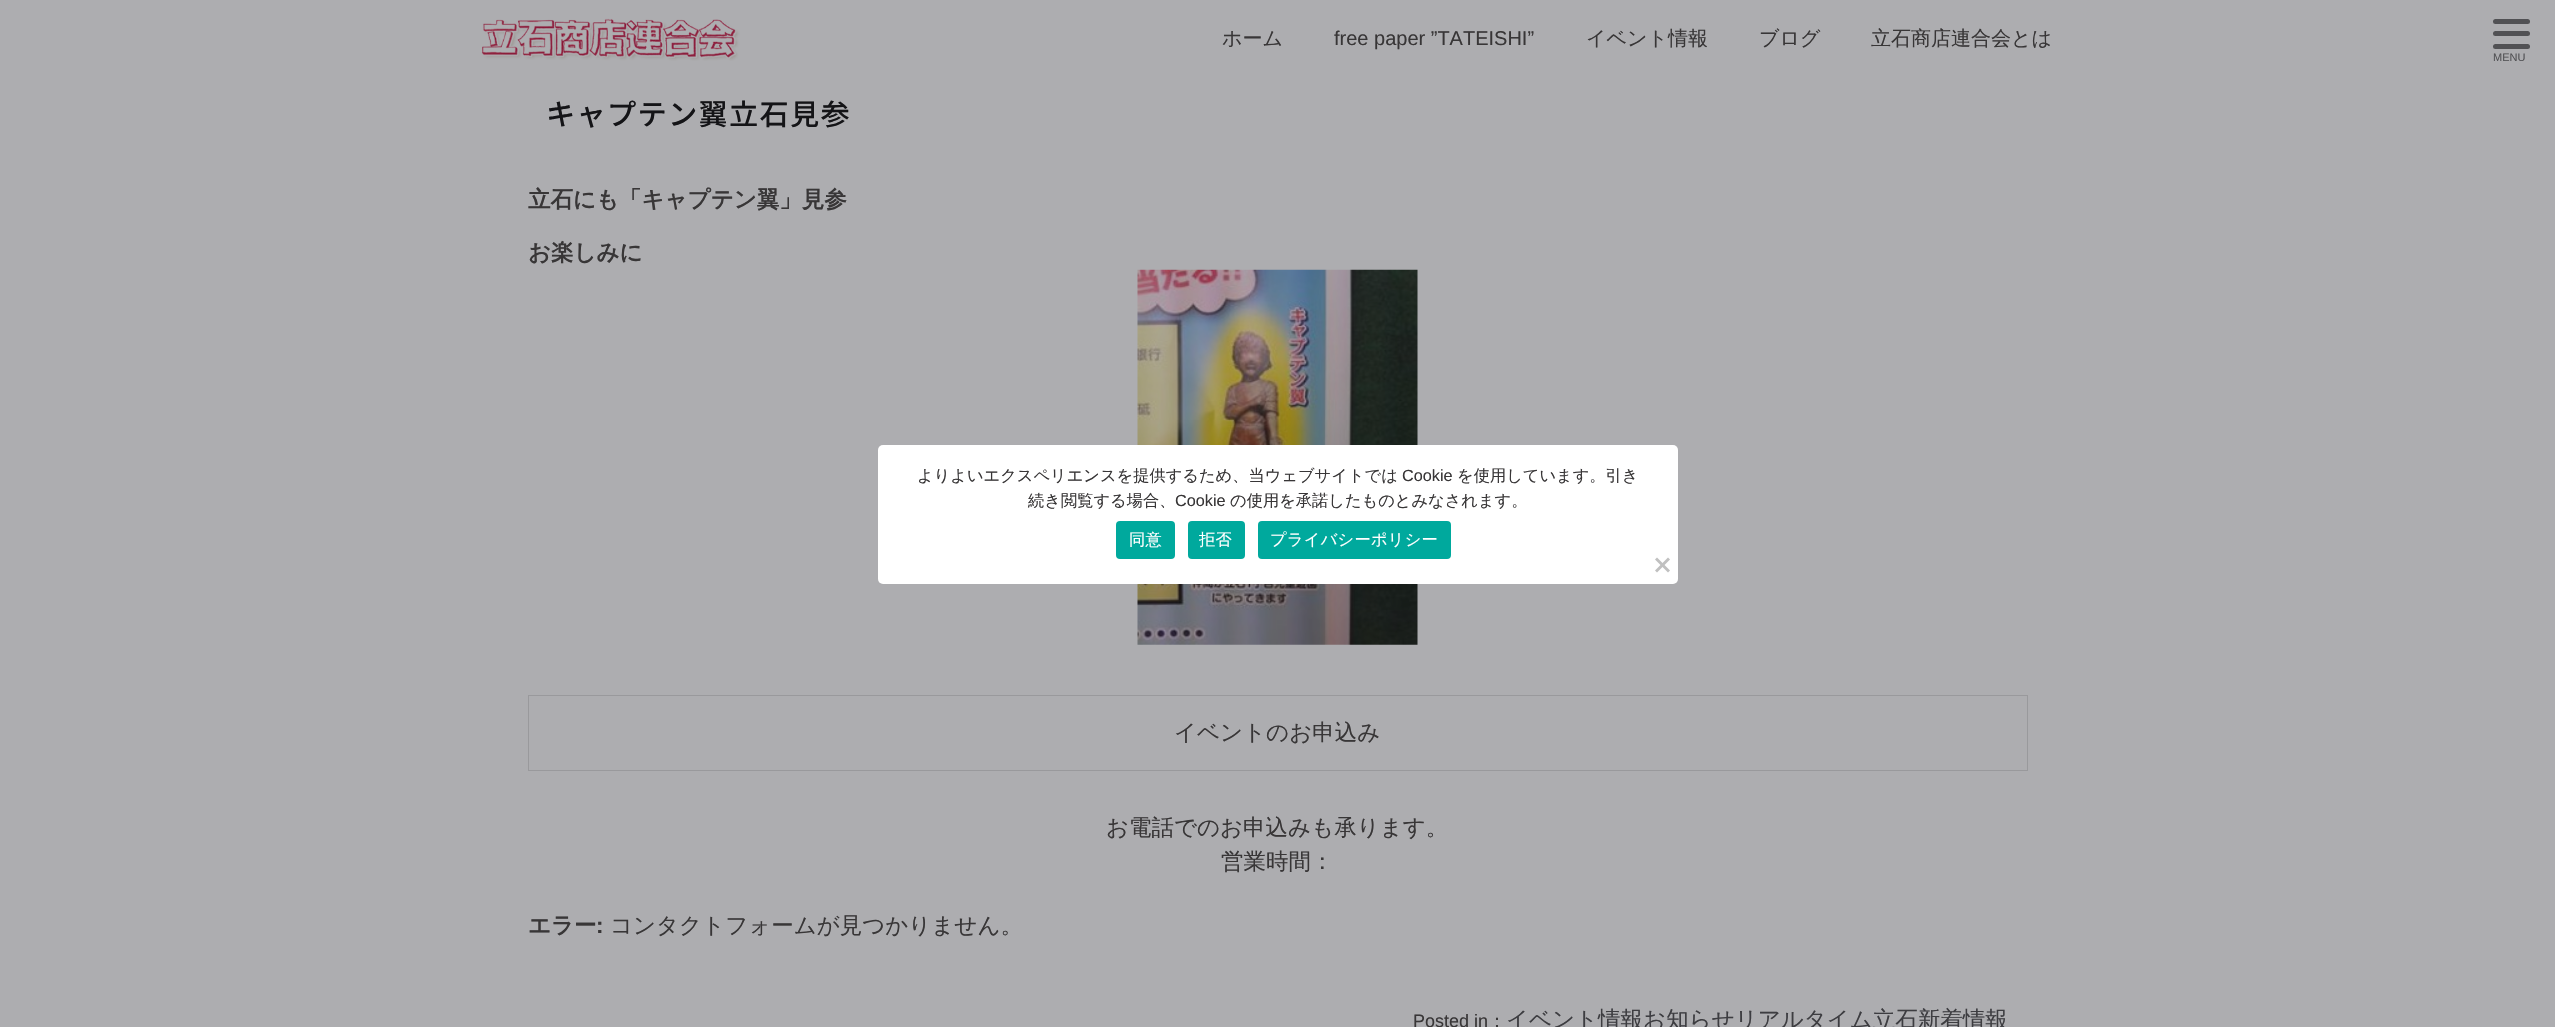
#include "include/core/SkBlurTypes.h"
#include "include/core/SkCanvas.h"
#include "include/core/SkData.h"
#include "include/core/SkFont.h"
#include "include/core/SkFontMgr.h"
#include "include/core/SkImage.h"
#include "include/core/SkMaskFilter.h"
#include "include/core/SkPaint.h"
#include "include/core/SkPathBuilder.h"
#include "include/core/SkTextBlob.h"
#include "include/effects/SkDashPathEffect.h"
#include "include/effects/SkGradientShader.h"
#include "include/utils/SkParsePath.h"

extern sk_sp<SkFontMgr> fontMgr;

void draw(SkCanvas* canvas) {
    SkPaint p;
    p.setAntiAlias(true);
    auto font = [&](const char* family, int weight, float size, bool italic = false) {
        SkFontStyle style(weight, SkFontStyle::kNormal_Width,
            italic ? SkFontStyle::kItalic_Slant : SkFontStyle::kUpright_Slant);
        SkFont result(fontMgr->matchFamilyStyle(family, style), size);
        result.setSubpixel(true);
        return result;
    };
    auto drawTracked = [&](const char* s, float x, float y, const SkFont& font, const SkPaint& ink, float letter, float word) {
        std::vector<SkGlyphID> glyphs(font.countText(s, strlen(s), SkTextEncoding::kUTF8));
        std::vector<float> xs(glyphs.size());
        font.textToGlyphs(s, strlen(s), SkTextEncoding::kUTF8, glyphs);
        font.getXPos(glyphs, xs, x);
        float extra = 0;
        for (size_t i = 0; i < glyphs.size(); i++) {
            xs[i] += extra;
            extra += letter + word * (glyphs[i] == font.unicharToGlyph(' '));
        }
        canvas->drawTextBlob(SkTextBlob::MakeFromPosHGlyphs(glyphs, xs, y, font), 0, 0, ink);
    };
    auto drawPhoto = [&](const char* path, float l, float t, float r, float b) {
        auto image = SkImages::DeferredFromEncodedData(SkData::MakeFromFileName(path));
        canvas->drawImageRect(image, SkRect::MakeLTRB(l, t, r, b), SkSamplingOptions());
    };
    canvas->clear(0xFFADADB0);
    drawPhoto("media/1.png", 481, 11, 740, 61);
    auto font1 = font("WenQuanYi Zen Hei", 500, 20);
    p.setColor(0xFF383637);
    canvas->drawString("ホーム", 1222, 45, font1, p);
    auto font2 = font("Liberation Sans", 400, 20);
    canvas->drawString("free paper ”TATEISHI”", 1334, 45, font2, p);
    {
        const struct { const char* s; float x, y; } items[] = {
            {"イベント情報", 1586, 45},
            {"ブログ", 1759, 45},
            {"立石商店連合会とは", 1871, 45},
        };
        for (auto [s, x, y] : items) {
            canvas->drawString(s, x, y, font1, p);
        }
    }
    p.setColor(0xFF515154);
    canvas->drawRoundRect(SkRect::MakeLTRB(2493, 19, 2530, 24), 2.5f, 2.5f, p);
    canvas->drawRoundRect(SkRect::MakeLTRB(2493, 31, 2530, 36), 2.5f, 2.5f, p);
    canvas->drawRoundRect(SkRect::MakeLTRB(2493, 44, 2530, 49), 2.5f, 2.5f, p);
    auto font3 = font("Liberation Sans", 400, 11);
    canvas->drawString("MENU", 2493, 61, font3, p);
    auto font4 = font("Noto Sans JP", 500, 29.25f);
    p.setColor(0xFF141417);
    drawTracked("キャプテン翼立石見参", 546, 125, font4, p, 1.25f, 0);
    auto font5 = font("WenQuanYi Zen Hei", 700, 22.5f);
    p.setColor(0xFF383637);
    canvas->drawString("立石にも「キャプテン翼」見参", 528, 207, font5, p);
    canvas->drawString("お楽しみに", 528, 260, font5, p);
    drawPhoto("media/2.png", 1137, 269, 1418, 645);
    p.setStyle(SkPaint::kStroke_Style);
    p.setStrokeWidth(1);
    p.setColor(0xFF99999C);
    canvas->drawRect(SkRect::MakeLTRB(528.5f, 695.5f, 2027.5f, 770.5f), p);
    auto font6 = font("WenQuanYi Zen Hei", 500, 22.5f);
    p.setStyle(SkPaint::kFill_Style);
    p.setColor(0xFF383637);
    {
        const struct { const char* s; float x, y; } items[] = {
            {"イベントのお申込み", 1174, 740},
            {"お電話でのお申込みも承ります。", 1106, 835},
            {"営業時間：", 1221, 869},
        };
        for (auto [s, x, y] : items) {
            canvas->drawString(s, x, y, font6, p);
        }
    }
    canvas->drawString("エラー", 528, 933, font5, p);
    auto font7 = font("Liberation Sans", 700, 22.5f);
    canvas->drawString(":", 596, 933, font7, p);
    canvas->drawString("コンタクトフォームが見つかりません。", 610, 933, font6, p);
    auto font8 = font("Liberation Sans", 400, 18);
    canvas->drawString("Posted in", 1413, 1027, font8, p);
    auto font9 = font("WenQuanYi Zen Hei", 500, 18);
    canvas->drawString("：", 1488, 1027, font9, p);
    p.setColor(0xFF3D3D41);
    canvas->drawString("イベント情報お知らせリアルタイム立石新着情報", 1506, 1027, font6, p);
    p.setColor(0xFFFFFFFF);
    canvas->drawRoundRect(SkRect::MakeLTRB(878, 445, 1678, 584), 5, 5, p);
    auto font10 = font("WenQuanYi Zen Hei", 500, 16.25f);
    p.setColor(0xFF383637);
    canvas->drawString("よりよいエクスペリエンスを提供するため、当ウェブサイトでは", 917, 481, font10, p);
    auto font11 = font("Liberation Sans", 400, 16.25f);
    canvas->drawString("Cookie", 1402, 481, font11, p);
    canvas->drawString("を使用しています。引き", 1457, 481, font10, p);
    canvas->drawString("続き閲覧する場合、", 1028, 506, font10, p);
    canvas->drawString("Cookie", 1175, 506, font11, p);
    canvas->drawString("の使用を承諾したものとみなされます。", 1230, 506, font10, p);
    p.setColor(0xFF00A99D);
    canvas->drawRoundRect(SkRect::MakeLTRB(1116, 521, 1175, 559), 4, 4, p);
    p.setColor(0xFFFFFFFF);
    drawTracked("同意", 1129, 545, font10, p, 0.25f, 0);
    p.setColor(0xFF00A99D);
    canvas->drawRoundRect(SkRect::MakeLTRB(1188, 521, 1245, 559), 4, 4, p);
    p.setColor(0xFFFFFFFF);
    drawTracked("拒否", 1199, 545, font10, p, 0.25f, 0);
    p.setColor(0xFF00A99D);
    canvas->drawRoundRect(SkRect::MakeLTRB(1258, 521, 1451, 559), 4, 4, p);
    p.setColor(0xFFFFFFFF);
    drawTracked("プライバシーポリシー", 1270, 545, font10, p, 0.25f, 0);
    p.setColor(0xFFC0C0C0);
    canvas->drawPath(SkPathBuilder().moveTo(1668, 557.5f).lineTo(1670, 559.5f).lineTo(1657, 572.5f).lineTo(1655, 570.5f).close().detach(), p);
    canvas->drawPath(SkPathBuilder().moveTo(1655, 559.5f).lineTo(1657, 557.5f).lineTo(1670, 570.5f).lineTo(1668, 572.5f).close().detach(), p);
}
